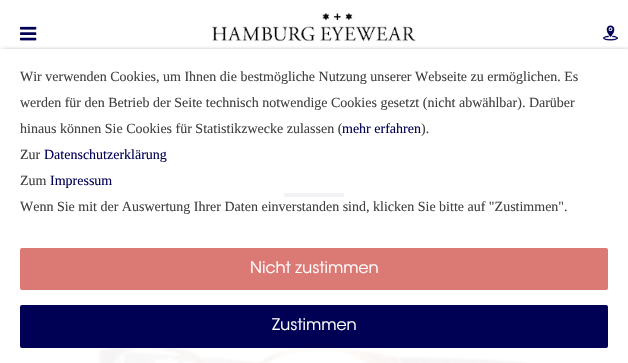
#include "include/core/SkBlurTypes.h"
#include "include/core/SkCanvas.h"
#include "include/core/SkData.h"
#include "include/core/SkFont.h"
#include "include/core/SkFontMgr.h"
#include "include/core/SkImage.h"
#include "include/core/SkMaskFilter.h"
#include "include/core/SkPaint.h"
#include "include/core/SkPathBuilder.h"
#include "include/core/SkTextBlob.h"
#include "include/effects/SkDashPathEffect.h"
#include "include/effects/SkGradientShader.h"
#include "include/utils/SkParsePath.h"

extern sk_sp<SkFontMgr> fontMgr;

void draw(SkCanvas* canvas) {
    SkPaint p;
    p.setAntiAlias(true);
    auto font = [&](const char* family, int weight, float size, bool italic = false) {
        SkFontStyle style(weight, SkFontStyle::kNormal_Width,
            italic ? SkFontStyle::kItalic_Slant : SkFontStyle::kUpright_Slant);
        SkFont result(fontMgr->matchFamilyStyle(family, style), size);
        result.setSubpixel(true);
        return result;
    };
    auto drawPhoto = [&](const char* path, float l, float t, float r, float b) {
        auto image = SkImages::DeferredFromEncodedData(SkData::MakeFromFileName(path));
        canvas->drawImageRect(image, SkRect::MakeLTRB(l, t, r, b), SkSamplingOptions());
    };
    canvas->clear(0xFFFFFFFF);
    drawPhoto("media/1.png", 20, 26, 37, 41);
    drawPhoto("media/2.png", 212, 13, 416, 42);
    drawPhoto("media/3.png", 603, 25, 618, 41);
    p.setColor(0xFFF2F2F6);
    canvas->drawRect(SkRect::MakeLTRB(284, 193, 344, 197), p);
    drawPhoto("media/4.png", 98, 348, 532, 363);
    canvas->save();
    canvas->clipRect(SkRect::MakeLTRB(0, 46, 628, 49));
    p.setColor(0xBF444444);
    p.setMaskFilter(SkMaskFilter::MakeBlur(kNormal_SkBlurStyle, 2.5f));
    canvas->drawRect(SkRect::MakeLTRB(2, 51, 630, 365), p);
    p.setMaskFilter(nullptr);
    canvas->restore();
    auto font1 = font("Tinos", 400, 14);
    p.setColor(0xFF404040);
    {
        const struct { const char* s; float x, y; } items[] = {
            {"Wir verwenden Cookies, um Ihnen die bestmögliche Nutzung unserer Webseite zu ermöglichen. Es", 20, 81},
            {"werden für den Betrieb der Seite technisch notwendige Cookies gesetzt (nicht abwählbar). Darüber", 20, 107},
            {"hinaus können Sie Cookies für Statistikzwecke zulassen (", 20, 133},
        };
        for (auto [s, x, y] : items) {
            canvas->drawString(s, x, y, font1, p);
        }
    }
    p.setColor(0xFF000054);
    canvas->drawString("mehr erfahren", 342, 133, font1, p);
    p.setColor(0xFF404040);
    canvas->drawString(").", 421, 133, font1, p);
    canvas->drawString("Zur", 20, 159, font1, p);
    p.setColor(0xFF000054);
    canvas->drawString("Datenschutzerklärung", 44, 159, font1, p);
    p.setColor(0xFF404040);
    canvas->drawString("Zum", 20, 185, font1, p);
    p.setColor(0xFF000054);
    canvas->drawString("Impressum", 50, 185, font1, p);
    p.setColor(0xFF404040);
    canvas->drawString("Wenn Sie mit der Auswertung Ihrer Daten einverstanden sind, klicken Sie bitte auf \"Zustimmen\".", 20, 211, font1, p);
    p.setColor(0xFFDB7974);
    canvas->drawRoundRect(SkRect::MakeLTRB(20, 248, 608, 290), 2, 2, p);
    auto font2 = font("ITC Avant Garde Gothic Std", 300, 16);
    p.setColor(0xFFFFFFFF);
    canvas->drawString("Nicht zustimmen", 250, 273, font2, p);
    p.setColor(0xFF000054);
    canvas->drawRoundRect(SkRect::MakeLTRB(20, 305, 608, 348), 2, 2, p);
    p.setColor(0xFFFFFFFF);
    canvas->drawString("Zustimmen", 272, 330, font2, p);
}
